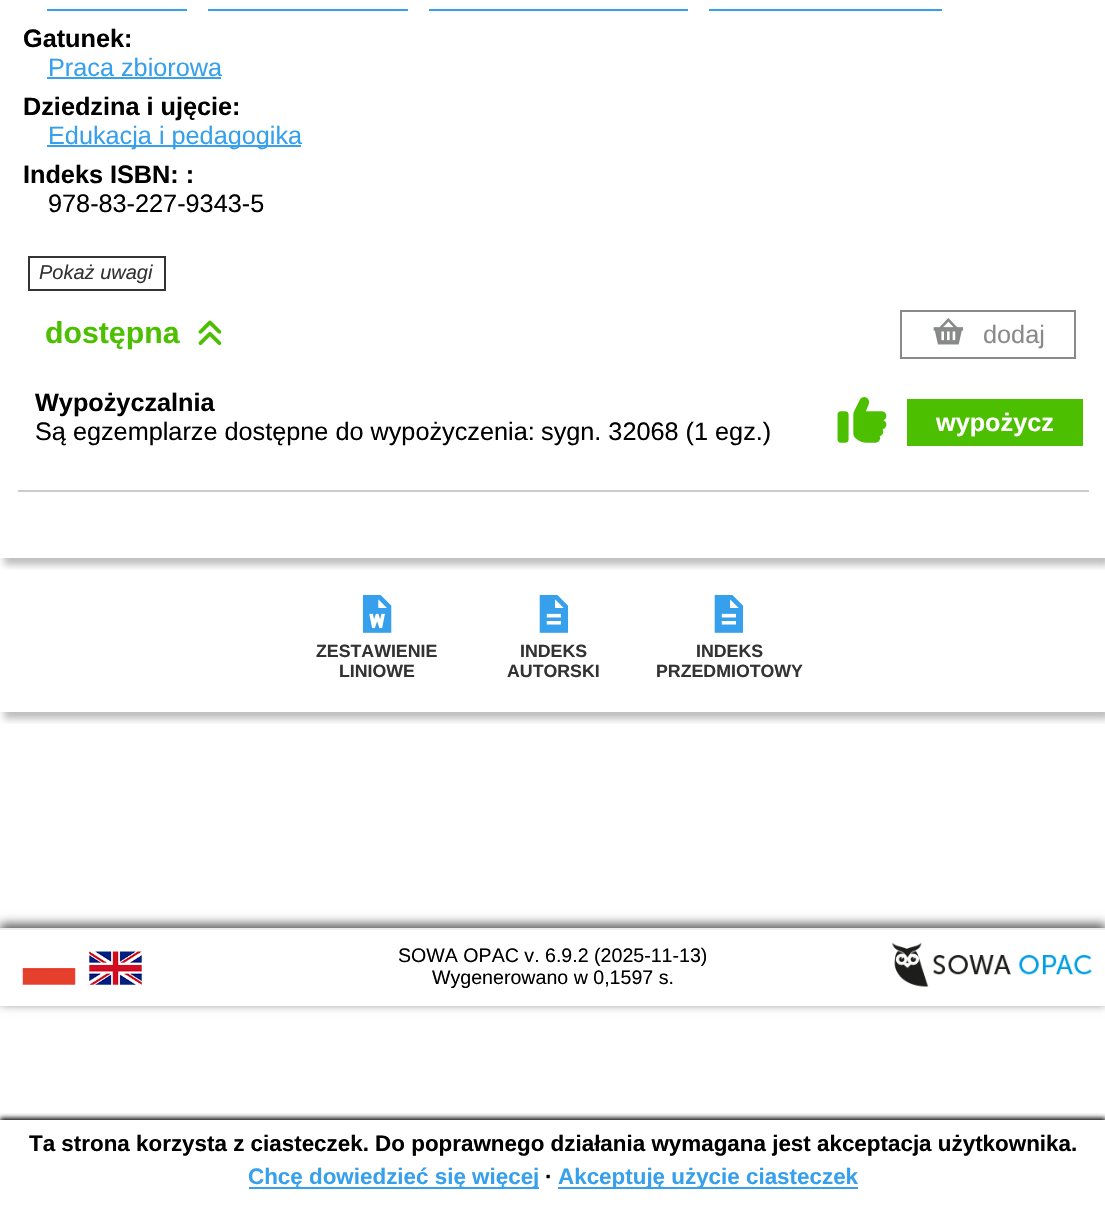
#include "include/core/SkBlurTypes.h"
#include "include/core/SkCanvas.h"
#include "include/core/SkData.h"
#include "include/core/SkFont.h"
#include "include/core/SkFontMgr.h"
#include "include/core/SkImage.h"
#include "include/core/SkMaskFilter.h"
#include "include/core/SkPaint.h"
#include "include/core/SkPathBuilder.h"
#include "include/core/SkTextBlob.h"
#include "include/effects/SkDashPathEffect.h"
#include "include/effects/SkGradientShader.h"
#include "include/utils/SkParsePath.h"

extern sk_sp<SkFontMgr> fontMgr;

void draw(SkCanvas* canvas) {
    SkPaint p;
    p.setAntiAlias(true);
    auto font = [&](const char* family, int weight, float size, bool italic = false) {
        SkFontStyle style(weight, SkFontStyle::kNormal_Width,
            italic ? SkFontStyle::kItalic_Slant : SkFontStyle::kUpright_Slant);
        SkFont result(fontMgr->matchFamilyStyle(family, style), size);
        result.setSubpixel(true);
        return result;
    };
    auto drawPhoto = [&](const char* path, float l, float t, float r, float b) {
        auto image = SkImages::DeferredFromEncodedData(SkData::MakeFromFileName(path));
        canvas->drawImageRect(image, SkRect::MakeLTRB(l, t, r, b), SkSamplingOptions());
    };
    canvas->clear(0xFFFFFFFF);
    canvas->save();
    canvas->clipRect(SkRect::MakeLTRB(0, 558, 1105, 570));
    p.setColor(0x40000000);
    p.setMaskFilter(SkMaskFilter::MakeBlur(kNormal_SkBlurStyle, 3.5f));
    canvas->drawRect(SkRect::MakeLTRB(4, -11, 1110, 565), p);
    p.setMaskFilter(nullptr);
    canvas->restore();
    {
        const struct { float l, t, r, b; SkColor color; } items[] = {
            {18, 490, 1089, 492, 0xFFCCCCCC},
            {47, 9, 187, 11, 0xFF36A0EC},
            {208, 9, 408, 11, 0xFF36A0EC},
            {429, 9, 688, 11, 0xFF36A0EC},
            {709, 9, 942, 11, 0xFF36A0EC},
        };
        for (auto [l, t, r, b, color] : items) {
            p.setColor(color);
            canvas->drawRect(SkRect::MakeLTRB(l, t, r, b), p);
        }
    }
    auto font1 = font("Liberation Sans", 700, 25.25f);
    p.setColor(0xFF000000);
    canvas->drawString("Gatunek:", 23, 47, font1, p);
    auto font2 = font("Liberation Sans", 400, 25.25f);
    p.setColor(0xFF36A0EC);
    canvas->drawString("Praca zbiorowa", 48, 76, font2, p);
    canvas->drawRect(SkRect::MakeLTRB(47, 77, 221, 79), p);
    p.setColor(0xFF000000);
    canvas->drawString("Dziedzina i ujęcie:", 23, 115, font1, p);
    p.setColor(0xFF36A0EC);
    canvas->drawRect(SkRect::MakeLTRB(47, 145, 301, 147), p);
    canvas->drawString("Edukacja i pedagogika", 48, 144, font2, p);
    p.setColor(0xFF000000);
    canvas->drawString("Indeks ISBN: :", 23, 183, font1, p);
    canvas->drawString("978-83-227-9343-5", 48, 212, font2, p);
    p.setStyle(SkPaint::kStroke_Style);
    p.setStrokeWidth(2);
    p.setColor(0xFF333333);
    canvas->drawRect(SkRect::MakeLTRB(29, 257, 165, 290), p);
    auto font3 = font("Liberation Sans", 400, 20, true);
    p.setStyle(SkPaint::kFill_Style);
    canvas->drawString("Pokaż uwagi", 39, 279, font3, p);
    auto font4 = font("Liberation Sans", 700, 30.25f);
    p.setColor(0xFF4CBF00);
    canvas->drawString("dostępna", 45, 343, font4, p);
    drawPhoto("media/1.png", 198, 320, 222, 346);
    p.setStyle(SkPaint::kStroke_Style);
    p.setColor(0xFF888989);
    canvas->drawRect(SkRect::MakeLTRB(901, 311, 1075, 358), p);
    drawPhoto("media/2.png", 933, 318, 964, 345);
    p.setStyle(SkPaint::kFill_Style);
    canvas->drawString("dodaj", 983, 343, font2, p);
    p.setColor(0xFF000000);
    canvas->drawString("Wypożyczalnia", 35, 411, font1, p);
    canvas->drawString("Są egzemplarze dostępne do wypożyczenia:", 35, 440, font2, p);
    canvas->drawString("sygn. 32068 (1 egz.)", 541, 440, font2, p);
    drawPhoto("media/3.png", 837, 397, 887, 443);
    p.setColor(0xFF4CBF00);
    canvas->drawRect(SkRect::MakeLTRB(907, 399, 1083, 446), p);
    p.setColor(0xFFFFFFFF);
    canvas->drawString("wypożycz", 936, 431, font1, p);
    canvas->save();
    canvas->clipRect(SkRect::MakeLTRB(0, 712, 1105, 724));
    p.setColor(0x40000000);
    p.setMaskFilter(SkMaskFilter::MakeBlur(kNormal_SkBlurStyle, 3.5f));
    canvas->drawRect(SkRect::MakeLTRB(4, 571, 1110, 719), p);
    p.setMaskFilter(nullptr);
    canvas->restore();
    drawPhoto("media/4.png", 362, 595, 392, 633);
    auto font5 = font("Liberation Sans", 700, 17.75f);
    p.setColor(0xFF333333);
    canvas->drawString("ZESTAWIENIE", 316, 657, font5, p);
    canvas->drawString("LINIOWE", 339, 677, font5, p);
    drawPhoto("media/5.png", 539, 595, 569, 633);
    canvas->drawString("INDEKS", 520, 657, font5, p);
    canvas->drawString("AUTORSKI", 507, 677, font5, p);
    drawPhoto("media/5.png", 714, 595, 744, 633);
    canvas->drawString("INDEKS", 696, 657, font5, p);
    canvas->drawString("PRZEDMIOTOWY", 656, 677, font5, p);
    canvas->save();
    canvas->clipPath(SkPathBuilder(SkPathFillType::kEvenOdd).moveTo(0, 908).lineTo(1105, 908).lineTo(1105, 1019).lineTo(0, 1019).close().moveTo(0, 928).lineTo(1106, 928).lineTo(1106, 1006).lineTo(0, 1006).close().detach(), true);
    p.setColor(0xA6000000);
    p.setMaskFilter(SkMaskFilter::MakeBlur(kNormal_SkBlurStyle, 5));
    canvas->drawRect(SkRect::MakeLTRB(0, 924, 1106, 1003), p);
    p.setMaskFilter(nullptr);
    canvas->restore();
    p.setColor(0xFFEEEEEE);
    canvas->drawRect(SkRect::MakeLTRB(0, 928, 1105, 930), p);
    drawPhoto("media/6.png", 22, 967, 76, 985);
    drawPhoto("media/7.png", 89, 951, 142, 985);
    auto font6 = font("Liberation Sans", 400, 19.6f);
    p.setColor(0xFF000000);
    canvas->drawString("SOWA OPAC v. 6.9.2 (2025-11-13)", 398, 962, font6, p);
    canvas->drawString("Wygenerowano w 0,1597 s.", 432, 984, font6, p);
    drawPhoto("media/8.png", 892, 942, 1092, 987);
    canvas->save();
    canvas->clipRect(SkRect::MakeLTRB(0, 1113, 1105, 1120));
    p.setMaskFilter(SkMaskFilter::MakeBlur(kNormal_SkBlurStyle, 2.5f));
    canvas->drawRect(SkRect::MakeLTRB(0, 1118, 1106, 1220), p);
    p.setMaskFilter(nullptr);
    canvas->restore();
    auto font7 = font("Liberation Sans", 700, 22.4f);
    canvas->drawString("Ta strona korzysta z ciasteczek. Do poprawnego działania wymagana jest akceptacja użytkownika.", 29, 1151, font7, p);
    p.setColor(0xFF36A0EC);
    canvas->drawRect(SkRect::MakeLTRB(249, 1187, 539, 1189), p);
    canvas->drawString("Chcę dowiedzieć się więcej", 248, 1184, font7, p);
    p.setColor(0xFF000000);
    canvas->drawString("∙", 545, 1184, font7, p);
    p.setColor(0xFF36A0EC);
    canvas->drawRect(SkRect::MakeLTRB(558, 1187, 858, 1189), p);
    canvas->drawString("Akceptuję użycie ciasteczek", 558, 1184, font7, p);
}
